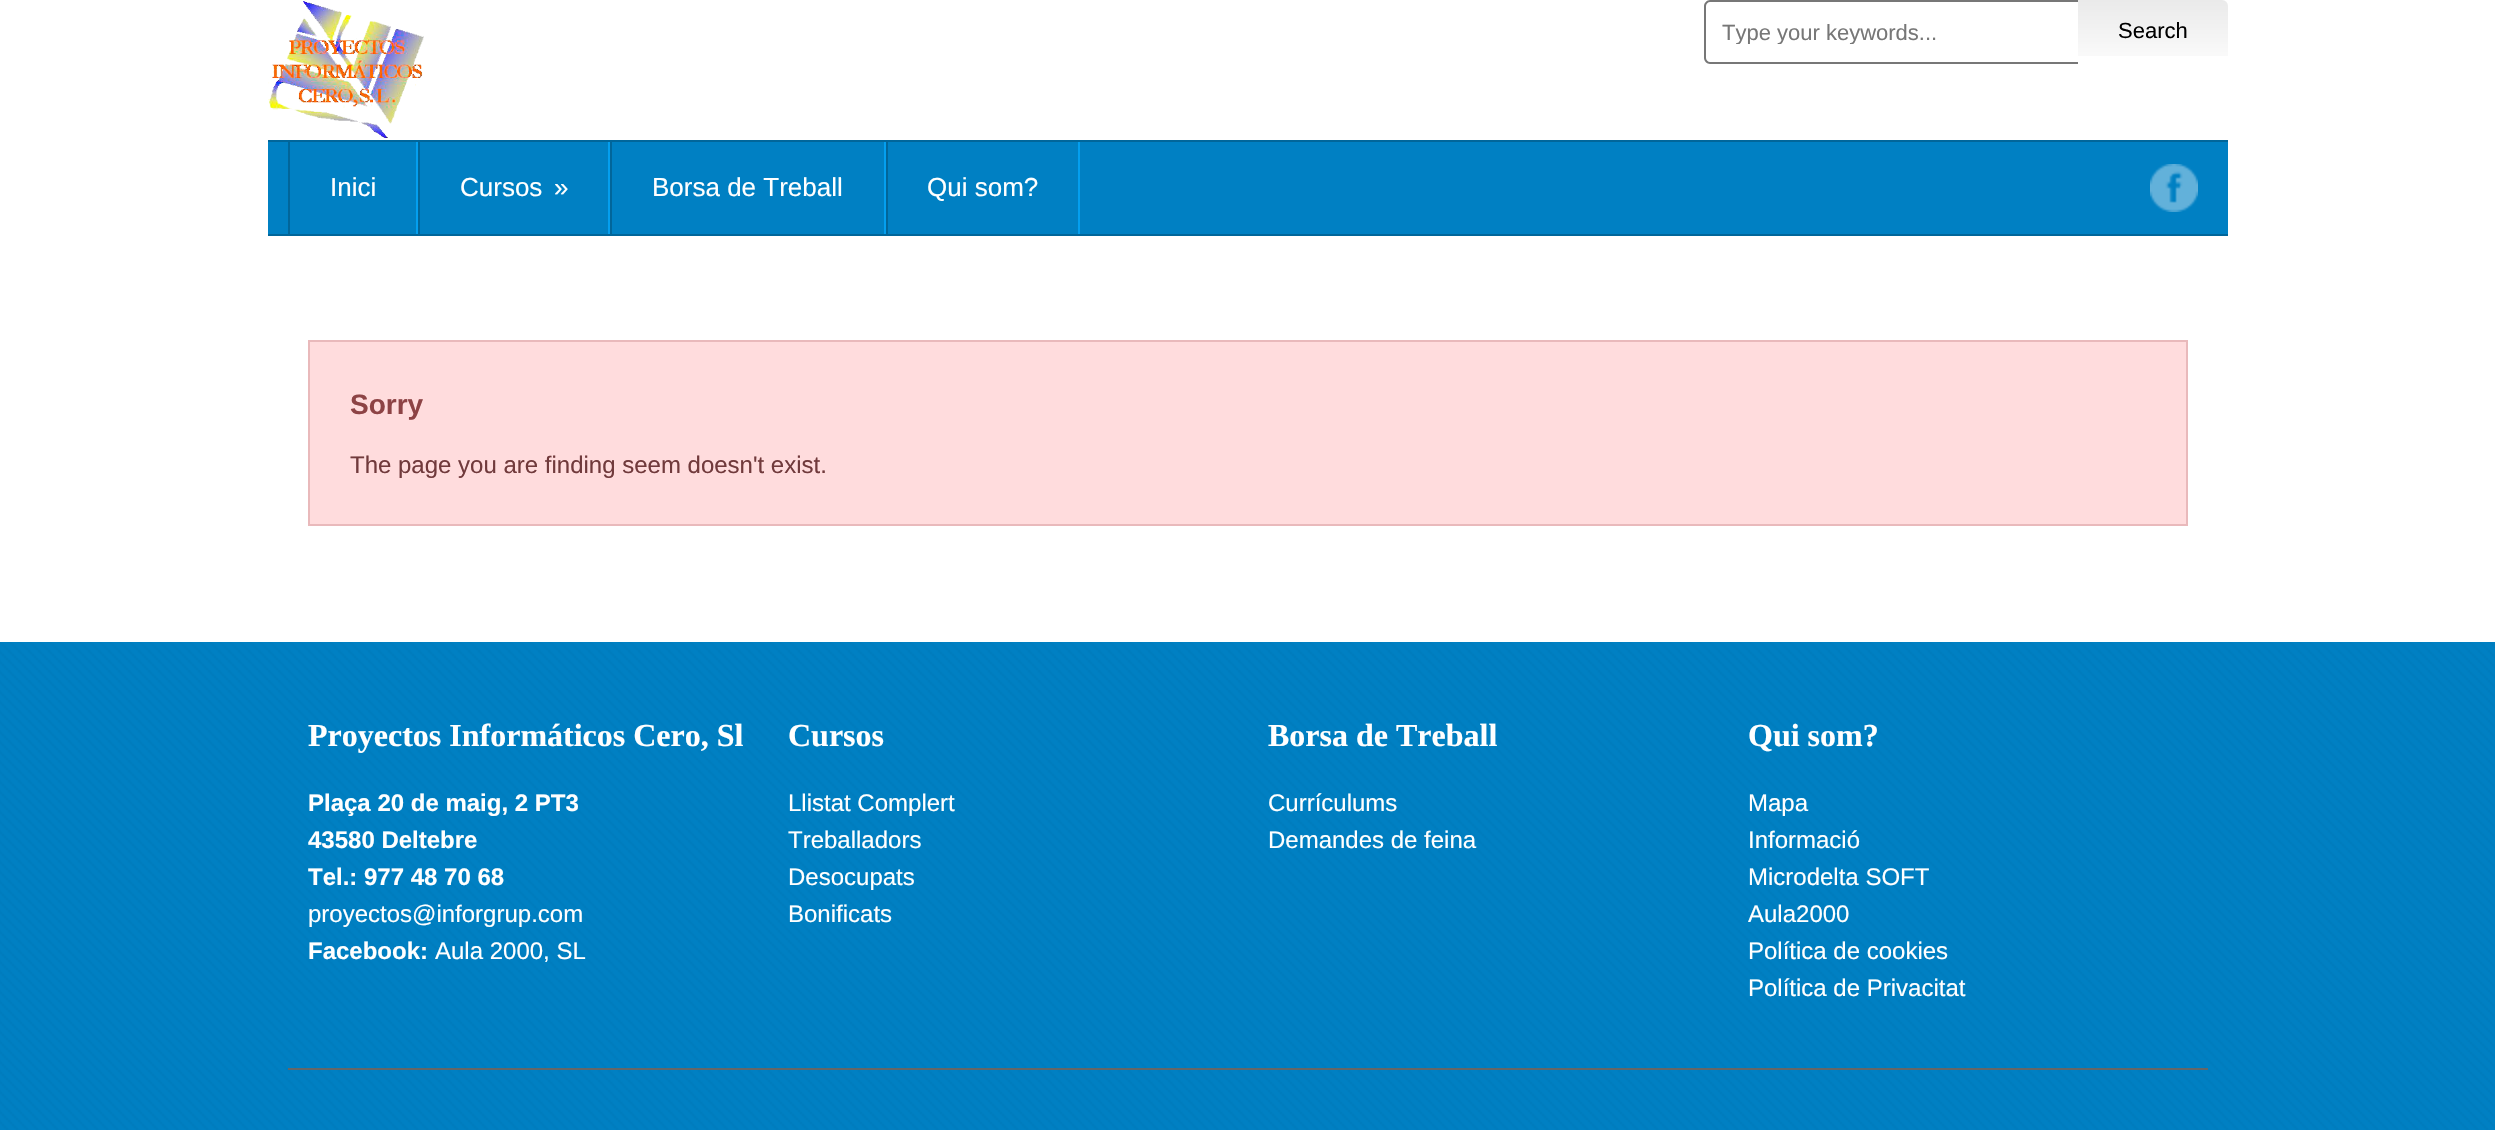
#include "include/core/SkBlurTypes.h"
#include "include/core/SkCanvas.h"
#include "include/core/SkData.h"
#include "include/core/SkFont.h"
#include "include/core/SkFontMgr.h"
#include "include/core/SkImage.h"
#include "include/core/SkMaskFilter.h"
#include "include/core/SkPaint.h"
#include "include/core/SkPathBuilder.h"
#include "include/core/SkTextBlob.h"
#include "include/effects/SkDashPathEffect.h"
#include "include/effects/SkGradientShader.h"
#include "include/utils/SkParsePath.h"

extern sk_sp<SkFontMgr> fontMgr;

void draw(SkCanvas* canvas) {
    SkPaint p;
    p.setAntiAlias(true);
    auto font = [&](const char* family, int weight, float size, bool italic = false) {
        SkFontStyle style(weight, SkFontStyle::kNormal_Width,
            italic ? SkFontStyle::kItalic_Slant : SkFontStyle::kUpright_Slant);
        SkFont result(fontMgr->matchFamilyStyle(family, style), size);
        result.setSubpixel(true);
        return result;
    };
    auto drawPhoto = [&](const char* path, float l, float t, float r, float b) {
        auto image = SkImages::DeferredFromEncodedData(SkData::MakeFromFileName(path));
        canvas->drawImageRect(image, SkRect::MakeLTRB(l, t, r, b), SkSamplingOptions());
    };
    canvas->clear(0xFFFFFFFF);
    drawPhoto("media/1.png", 268, 0, 424, 140);
    p.setColor(0xFF777777);
    canvas->drawPath(SkPathBuilder(SkPathFillType::kEvenOdd).moveTo(1710, 0).lineTo(2078, 0).lineTo(2078, 64).lineTo(1710, 64).cubicTo(1707, 64, 1704, 61, 1704, 58).lineTo(1704, 6).cubicTo(1704, 3, 1707, 0, 1710, 0).close().moveTo(1710, 2).lineTo(2078, 2).lineTo(2078, 62).lineTo(1710, 62).cubicTo(1708, 62, 1706, 60, 1706, 58).lineTo(1706, 6).cubicTo(1706, 4, 1708, 2, 1710, 2).close().detach(), p);
    canvas->save();
    canvas->clipRect(SkRect::MakeLTRB(1722, 20, 2062, 44));
    auto font1 = font("Liberation Sans", 400, 22);
    canvas->drawString("Type your keywords...", 1722, 40, font1, p);
    canvas->restore();
    drawPhoto("media/2.png", 2078, 0, 2228, 56);
    p.setColor(0xFF000000);
    canvas->drawString("Search", 2118, 38, font1, p);
    {
        const struct { float l, t, r, b; SkColor color; } items[] = {
            {268, 142, 2228, 234, 0xFF0080C3},
            {268, 140, 2228, 142, 0xFF01669A},
            {268, 234, 2228, 236, 0xFF01669A},
            {416, 142, 418, 234, 0xFF049FEF},
            {288, 142, 290, 234, 0xFF01669A},
        };
        for (auto [l, t, r, b, color] : items) {
            p.setColor(color);
            canvas->drawRect(SkRect::MakeLTRB(l, t, r, b), p);
        }
    }
    auto font2 = font("Liberation Sans", 400, 26);
    p.setColor(0xFFFFFFFF);
    canvas->drawString("Inici", 330, 196, font2, p);
    p.setColor(0xFF049FEF);
    canvas->drawRect(SkRect::MakeLTRB(608, 142, 610, 234), p);
    p.setColor(0xFF01669A);
    canvas->drawRect(SkRect::MakeLTRB(418, 142, 420, 234), p);
    p.setColor(0xFFFFFFFF);
    canvas->drawString("Cursos", 460, 196, font2, p);
    canvas->drawString("»", 554, 196, font2, p);
    p.setColor(0xFF049FEF);
    canvas->drawRect(SkRect::MakeLTRB(884, 142, 886, 234), p);
    p.setColor(0xFF01669A);
    canvas->drawRect(SkRect::MakeLTRB(610, 142, 612, 234), p);
    p.setColor(0xFFFFFFFF);
    canvas->drawString("Borsa de Treball", 652, 196, font2, p);
    p.setColor(0xFF049FEF);
    canvas->drawRect(SkRect::MakeLTRB(1078, 142, 1080, 234), p);
    p.setColor(0xFF01669A);
    canvas->drawRect(SkRect::MakeLTRB(886, 142, 888, 234), p);
    p.setColor(0xFFFFFFFF);
    canvas->drawString("Qui som?", 927, 196, font2, p);
    drawPhoto("media/3.png", 2150, 164, 2198, 212);
    p.setColor(0xFFFFDCDD);
    canvas->drawRect(SkRect::MakeLTRB(309, 341, 2187, 525), p);
    p.setStyle(SkPaint::kStroke_Style);
    p.setStrokeWidth(2);
    p.setColor(0xFFE9B9BB);
    canvas->drawRect(SkRect::MakeLTRB(309, 341, 2187, 525), p);
    auto font3 = font("Liberation Sans", 700, 28);
    p.setStyle(SkPaint::kFill_Style);
    p.setColor(0xFF8D4345);
    canvas->drawString("Sorry", 350, 414, font3, p);
    auto font4 = font("Liberation Sans", 400, 24);
    p.setColor(0xFF713A3C);
    canvas->drawString("The page you are finding seem doesn't exist.", 350, 473, font4, p);
    p.setColor(0xFF0080C3);
    canvas->drawRect(SkRect::MakeLTRB(0, 642, 2495, 1130), p);
    drawPhoto("media/4.png", 0, 642, 2495, 1130);
    auto font5 = font("Liberation Serif", 700, 32);
    p.setColor(0xFFFFFFFF);
    canvas->drawString("Proyectos Informáticos Cero, Sl", 308, 746, font5, p);
    auto font6 = font("Liberation Sans", 700, 24);
    {
        const struct { const char* s; float x, y; } items[] = {
            {"Plaça 20 de maig, 2 PT3", 308, 811},
            {"43580 Deltebre", 308, 848},
            {"Tel.: 977 48 70 68", 308, 885},
        };
        for (auto [s, x, y] : items) {
            canvas->drawString(s, x, y, font6, p);
        }
    }
    canvas->drawString("proyectos@inforgrup.com", 308, 922, font4, p);
    canvas->drawString("Facebook:", 308, 959, font6, p);
    canvas->drawString("Aula 2000, SL", 435, 959, font4, p);
    canvas->drawString("Cursos", 788, 746, font5, p);
    {
        const struct { const char* s; float x, y; } items[] = {
            {"Llistat Complert", 788, 811},
            {"Treballadors", 788, 848},
            {"Desocupats", 788, 885},
            {"Bonificats", 788, 922},
        };
        for (auto [s, x, y] : items) {
            canvas->drawString(s, x, y, font4, p);
        }
    }
    canvas->drawString("Borsa de Treball", 1268, 746, font5, p);
    canvas->drawString("Currículums", 1268, 811, font4, p);
    canvas->drawString("Demandes de feina", 1268, 848, font4, p);
    canvas->drawString("Qui som?", 1748, 746, font5, p);
    {
        const struct { const char* s; float x, y; } items[] = {
            {"Mapa", 1748, 811},
            {"Informació", 1748, 848},
            {"Microdelta SOFT", 1748, 885},
            {"Aula2000", 1748, 922},
            {"Política de cookies", 1748, 959},
            {"Política de Privacitat", 1748, 996},
        };
        for (auto [s, x, y] : items) {
            canvas->drawString(s, x, y, font4, p);
        }
    }
    p.setColor(0xFF666666);
    canvas->drawRect(SkRect::MakeLTRB(288, 1068, 2208, 1070), p);
}
